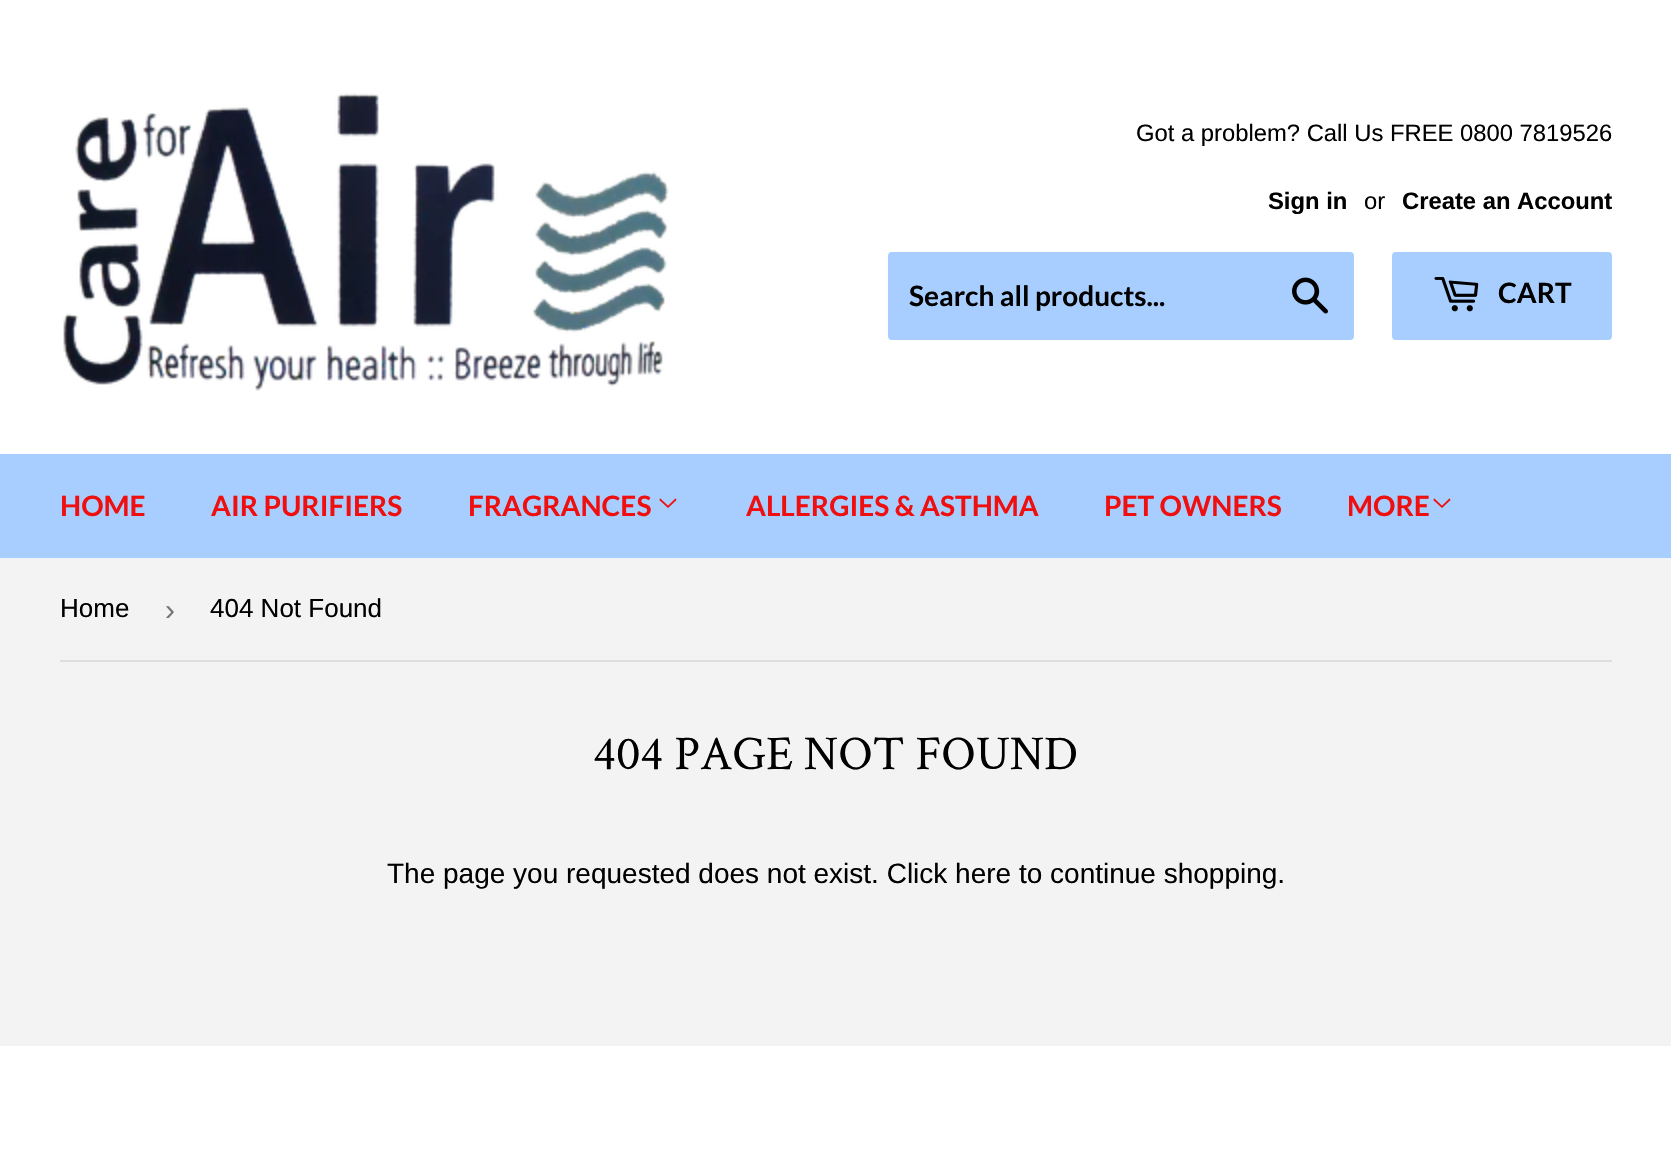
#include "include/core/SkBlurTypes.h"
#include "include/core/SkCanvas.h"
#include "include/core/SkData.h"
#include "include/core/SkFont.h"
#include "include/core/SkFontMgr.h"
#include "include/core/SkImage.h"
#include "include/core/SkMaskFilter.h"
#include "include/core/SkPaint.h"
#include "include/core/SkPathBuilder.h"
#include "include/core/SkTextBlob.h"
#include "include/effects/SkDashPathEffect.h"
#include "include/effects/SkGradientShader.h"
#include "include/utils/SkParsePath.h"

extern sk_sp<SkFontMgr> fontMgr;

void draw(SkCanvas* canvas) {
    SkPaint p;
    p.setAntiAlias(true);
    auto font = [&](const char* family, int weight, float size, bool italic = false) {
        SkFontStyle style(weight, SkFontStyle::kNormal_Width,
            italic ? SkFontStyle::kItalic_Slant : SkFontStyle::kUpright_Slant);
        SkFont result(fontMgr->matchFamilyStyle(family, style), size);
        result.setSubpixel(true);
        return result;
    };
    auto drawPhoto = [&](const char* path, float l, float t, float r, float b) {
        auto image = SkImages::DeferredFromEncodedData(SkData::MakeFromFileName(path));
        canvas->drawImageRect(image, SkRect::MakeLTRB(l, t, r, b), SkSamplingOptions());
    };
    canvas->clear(0xFFF3F3F3);
    p.setColor(0xFFFFFFFF);
    canvas->drawRect(SkRect::MakeLTRB(0, 0, 1671, 454), p);
    drawPhoto("media/1.png", 63, 93, 669, 391);
    auto font1 = font("Liberation Sans", 400, 23.8f);
    p.setColor(0xFF000000);
    canvas->drawString("Got a problem? Call Us FREE 0800 7819526", 1136, 141, font1, p);
    auto font2 = font("Liberation Sans", 700, 23.8f);
    canvas->drawString("Sign in", 1268, 209, font2, p);
    canvas->drawString("or", 1364, 209, font1, p);
    canvas->drawString("Create an Account", 1402, 209, font2, p);
    p.setColor(0xFFA7CEFF);
    canvas->drawRoundRect(SkRect::MakeLTRB(888, 252, 1354, 340), 4, 4, p);
    auto font3 = font("Lato", 700, 28);
    p.setColor(0xFF000000);
    canvas->drawString("Search all products...", 909, 306, font3, p);
    drawPhoto("media/2.png", 1292, 277, 1328, 314);
    p.setColor(0xFFA7CEFF);
    canvas->drawRoundRect(SkRect::MakeLTRB(1392, 252, 1612, 340), 4, 4, p);
    drawPhoto("media/3.png", 1434, 277, 1479, 312);
    p.setColor(0xFF000000);
    canvas->drawString("CART", 1498, 303, font3, p);
    p.setColor(0xFFA7CEFF);
    canvas->drawRect(SkRect::MakeLTRB(0, 454, 1671, 558), p);
    p.setColor(0xFFEF0F0F);
    {
        const struct { const char* s; float x, y; } items[] = {
            {"HOME", 60, 516},
            {"AIR PURIFIERS", 211, 516},
            {"FRAGRANCES", 468, 516},
        };
        for (auto [s, x, y] : items) {
            canvas->drawString(s, x, y, font3, p);
        }
    }
    drawPhoto("media/4.png", 659, 498, 677, 508);
    {
        const struct { const char* s; float x, y; } items[] = {
            {"ALLERGIES & ASTHMA", 746, 516},
            {"PET OWNERS", 1104, 516},
            {"MORE", 1347, 516},
        };
        for (auto [s, x, y] : items) {
            canvas->drawString(s, x, y, font3, p);
        }
    }
    drawPhoto("media/4.png", 1433, 498, 1451, 508);
    p.setColor(0xFFDEDEDE);
    canvas->drawRect(SkRect::MakeLTRB(60, 660, 1612, 662), p);
    auto font4 = font("Liberation Sans", 400, 26);
    p.setColor(0xFF000000);
    canvas->drawString("Home", 60, 617, font4, p);
    auto font5 = font("Liberation Sans", 400, 30);
    p.setColor(0xFF767676);
    canvas->drawString("›", 165, 620, font5, p);
    p.setColor(0xFF000000);
    canvas->drawString("404 Not Found", 210, 617, font4, p);
    auto font6 = font("Crimson Text", 400, 48.5f);
    canvas->drawString("404 PAGE NOT FOUND", 593, 769, font6, p);
    auto font7 = font("Liberation Sans", 400, 28);
    canvas->drawString("The page you requested does not exist. Click here to continue shopping.", 387, 883, font7, p);
    p.setColor(0xFFFFFFFF);
    canvas->drawRect(SkRect::MakeLTRB(0, 1046, 1671, 1176), p);
}
